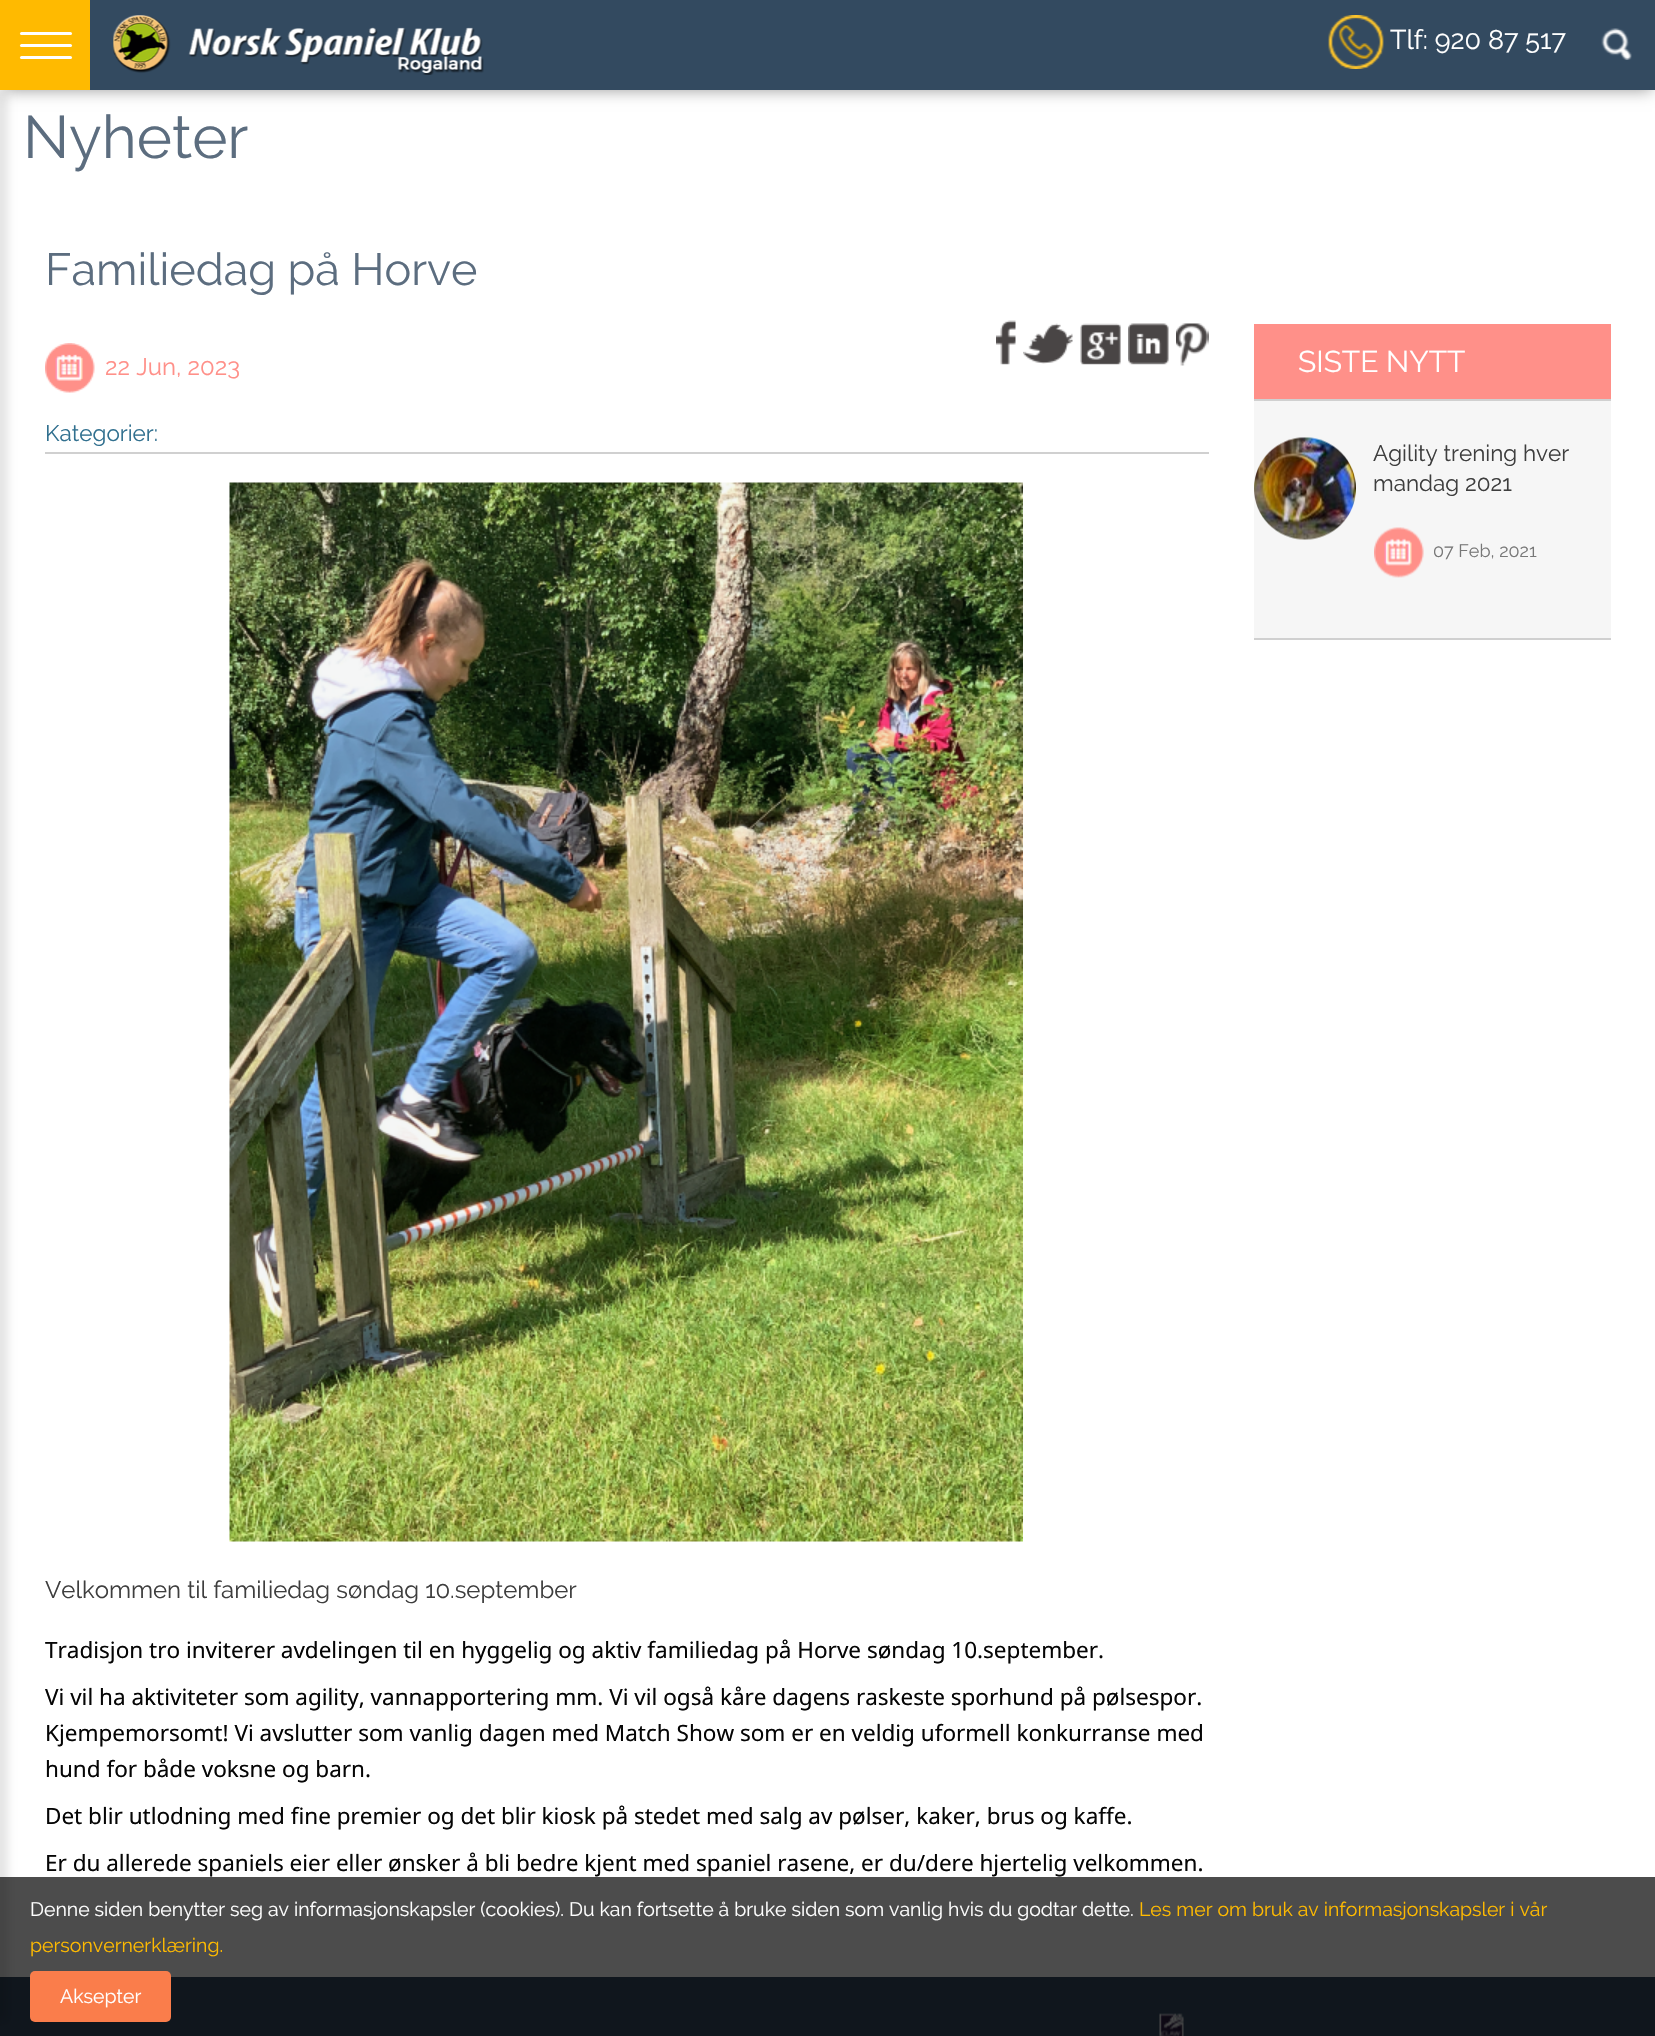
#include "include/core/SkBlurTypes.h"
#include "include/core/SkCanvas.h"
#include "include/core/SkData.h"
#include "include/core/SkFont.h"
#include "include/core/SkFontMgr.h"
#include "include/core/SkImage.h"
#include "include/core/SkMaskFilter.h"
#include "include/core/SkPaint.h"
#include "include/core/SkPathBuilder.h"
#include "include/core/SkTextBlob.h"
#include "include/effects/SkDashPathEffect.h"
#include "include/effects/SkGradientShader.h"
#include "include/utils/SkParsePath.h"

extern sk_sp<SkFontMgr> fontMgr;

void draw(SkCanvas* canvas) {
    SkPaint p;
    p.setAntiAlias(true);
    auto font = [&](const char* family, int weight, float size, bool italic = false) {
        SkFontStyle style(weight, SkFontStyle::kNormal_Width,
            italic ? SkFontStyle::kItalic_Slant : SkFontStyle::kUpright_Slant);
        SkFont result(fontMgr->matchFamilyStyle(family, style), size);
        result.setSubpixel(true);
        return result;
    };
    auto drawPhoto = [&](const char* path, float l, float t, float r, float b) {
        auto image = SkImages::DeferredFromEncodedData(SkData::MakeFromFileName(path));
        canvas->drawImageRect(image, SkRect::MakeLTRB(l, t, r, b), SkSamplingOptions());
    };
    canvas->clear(0xFF334A60);
    p.setColor(0xFFFFFFFF);
    canvas->drawRect(SkRect::MakeLTRB(0, 90, 1655, 1977), p);
    p.setColor(0xFF999999);
    p.setMaskFilter(SkMaskFilter::MakeBlur(kNormal_SkBlurStyle, 7.5f));
    canvas->drawRect(SkRect::MakeLTRB(5, 9, 1652, 90), p);
    p.setMaskFilter(nullptr);
    p.setColor(0xFF334A60);
    canvas->drawRect(SkRect::MakeLTRB(90, 0, 1655, 90), p);
    drawPhoto("media/13.png", 1159, 2013, 1184, 2036);
    p.setColor(0xB3000000);
    canvas->drawRect(SkRect::MakeLTRB(0, 1877, 1655, 2036), p);
    p.setColor(0x1A000000);
    p.setMaskFilter(SkMaskFilter::MakeBlur(kNormal_SkBlurStyle, 4));
    canvas->drawRect(SkRect::MakeLTRB(-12, 90, 8, 2022), p);
    p.setMaskFilter(nullptr);
    p.setColor(0xFFFFBA00);
    canvas->drawRect(SkRect::MakeLTRB(0, 0, 90, 90), p);
    p.setColor(0xFFFFFFFF);
    canvas->drawRoundRect(SkRect::MakeLTRB(20, 44, 72, 47), 1.5f, 1.5f, p);
    canvas->drawRoundRect(SkRect::MakeLTRB(20, 32, 72, 35), 1.5f, 1.5f, p);
    canvas->drawRoundRect(SkRect::MakeLTRB(20, 56, 72, 59), 1.5f, 1.5f, p);
    drawPhoto("media/1.png", 113, 15, 484, 75);
    drawPhoto("media/2.png", 1328, 15, 1384, 69);
    auto font1 = font("Raleway", 400, 27);
    canvas->drawString("Tlf: 920 87 517", 1390, 49, font1, p);
    drawPhoto("media/3.png", 1601, 28, 1632, 60);
    auto font2 = font("Raleway", 400, 60);
    p.setColor(0xFF5C6D7F);
    canvas->drawString("Nyheter", 23, 158, font2, p);
    auto font3 = font("Raleway", 400, 45);
    canvas->drawString("Familiedag på Horve", 45, 285, font3, p);
    p.setColor(0xFFD0D0D0);
    canvas->drawRect(SkRect::MakeLTRB(45, 452, 1209, 454), p);
    drawPhoto("media/4.png", 45, 343, 95, 393);
    auto font4 = font("Raleway", 400, 24);
    p.setColor(0xFFFF9089);
    canvas->drawString("22 Jun, 2023", 105, 375, font4, p);
    drawPhoto("media/5.png", 996, 320, 1016, 365);
    drawPhoto("media/6.png", 1023, 323, 1073, 364);
    drawPhoto("media/7.png", 1080, 323, 1121, 365);
    drawPhoto("media/8.png", 1128, 323, 1169, 365);
    drawPhoto("media/9.png", 1176, 323, 1209, 366);
    auto font5 = font("Raleway", 400, 22.5f);
    p.setColor(0xFF31708F);
    canvas->drawString("Kategorier:", 45, 441, font5, p);
    drawPhoto("media/10.png", 229, 482, 1023, 1542);
    p.setColor(0xFF3E3E3E);
    canvas->drawString("Velkommen til familiedag søndag 10.september", 45, 1598, font4, p);
    auto font6 = font("Noto Sans", 400, 22.5f);
    p.setColor(0xFF050505);
    {
        const struct { const char* s; float x, y; } items[] = {
            {"Tradisjon tro inviterer avdelingen til en hyggelig og aktiv familiedag på Horve søndag 10.september.", 45, 1658},
            {"Vi vil ha aktiviteter som agility, vannapportering mm. Vi vil også kåre dagens raskeste sporhund på pølsespor.", 45, 1705},
            {"Kjempemorsomt! Vi avslutter som vanlig dagen med Match Show som er en veldig uformell konkurranse med", 45, 1741},
            {"hund for både voksne og barn.", 45, 1777},
            {"Det blir utlodning med fine premier og det blir kiosk på stedet med salg av pølser, kaker, brus og kaffe.", 45, 1824},
            {"Er du allerede spaniels eier eller ønsker å bli bedre kjent med spaniel rasene, er du/dere hjertelig velkommen.", 45, 1871},
        };
        for (auto [s, x, y] : items) {
            canvas->drawString(s, x, y, font6, p);
        }
    }
    {
        const struct { float l, t, r, b; SkColor color; } items[] = {
            {1254, 401, 1611, 638, 0xFFF6F6F6},
            {1254, 324, 1611, 399, 0xFFFF9089},
            {1254, 399, 1611, 401, 0xFFD0D0D0},
        };
        for (auto [l, t, r, b, color] : items) {
            p.setColor(color);
            canvas->drawRect(SkRect::MakeLTRB(l, t, r, b), p);
        }
    }
    auto font7 = font("Raleway", 400, 30);
    p.setColor(0xFFFFFFFF);
    canvas->drawString("SISTE NYTT", 1298, 372, font7, p);
    p.setColor(0xFFD0D0D0);
    canvas->drawRect(SkRect::MakeLTRB(1254, 638, 1611, 640), p);
    drawPhoto("media/11.png", 1254, 437, 1356, 540);
    p.setColor(0xFF3E3E3E);
    canvas->drawString("Agility trening hver", 1373, 461, font5, p);
    canvas->drawString("mandag 2021", 1373, 491, font5, p);
    drawPhoto("media/12.png", 1374, 527, 1424, 578);
    auto font8 = font("Raleway", 400, 18);
    p.setColor(0xFF777777);
    canvas->drawString("07 Feb, 2021", 1433, 557, font8, p);
    auto font9 = font("Raleway", 400, 19.5f);
    p.setColor(0xFFFFFFFF);
    canvas->drawString("Denne siden benytter seg av informasjonskapsler (cookies). Du kan fortsette å bruke siden som vanlig hvis du godtar dette.", 30, 1916, font9, p);
    p.setColor(0xFFFFBA00);
    canvas->drawString("Les mer om bruk av informasjonskapsler i vår", 1139, 1916, font9, p);
    canvas->drawString("personvernerklæring.", 30, 1952, font9, p);
    p.setColor(0xFFFA7D4B);
    canvas->drawRoundRect(SkRect::MakeLTRB(30, 1971, 171, 2022), 5, 5, p);
    p.setColor(0xFFFFFFFF);
    canvas->drawString("Aksepter", 60, 2003, font9, p);
}
